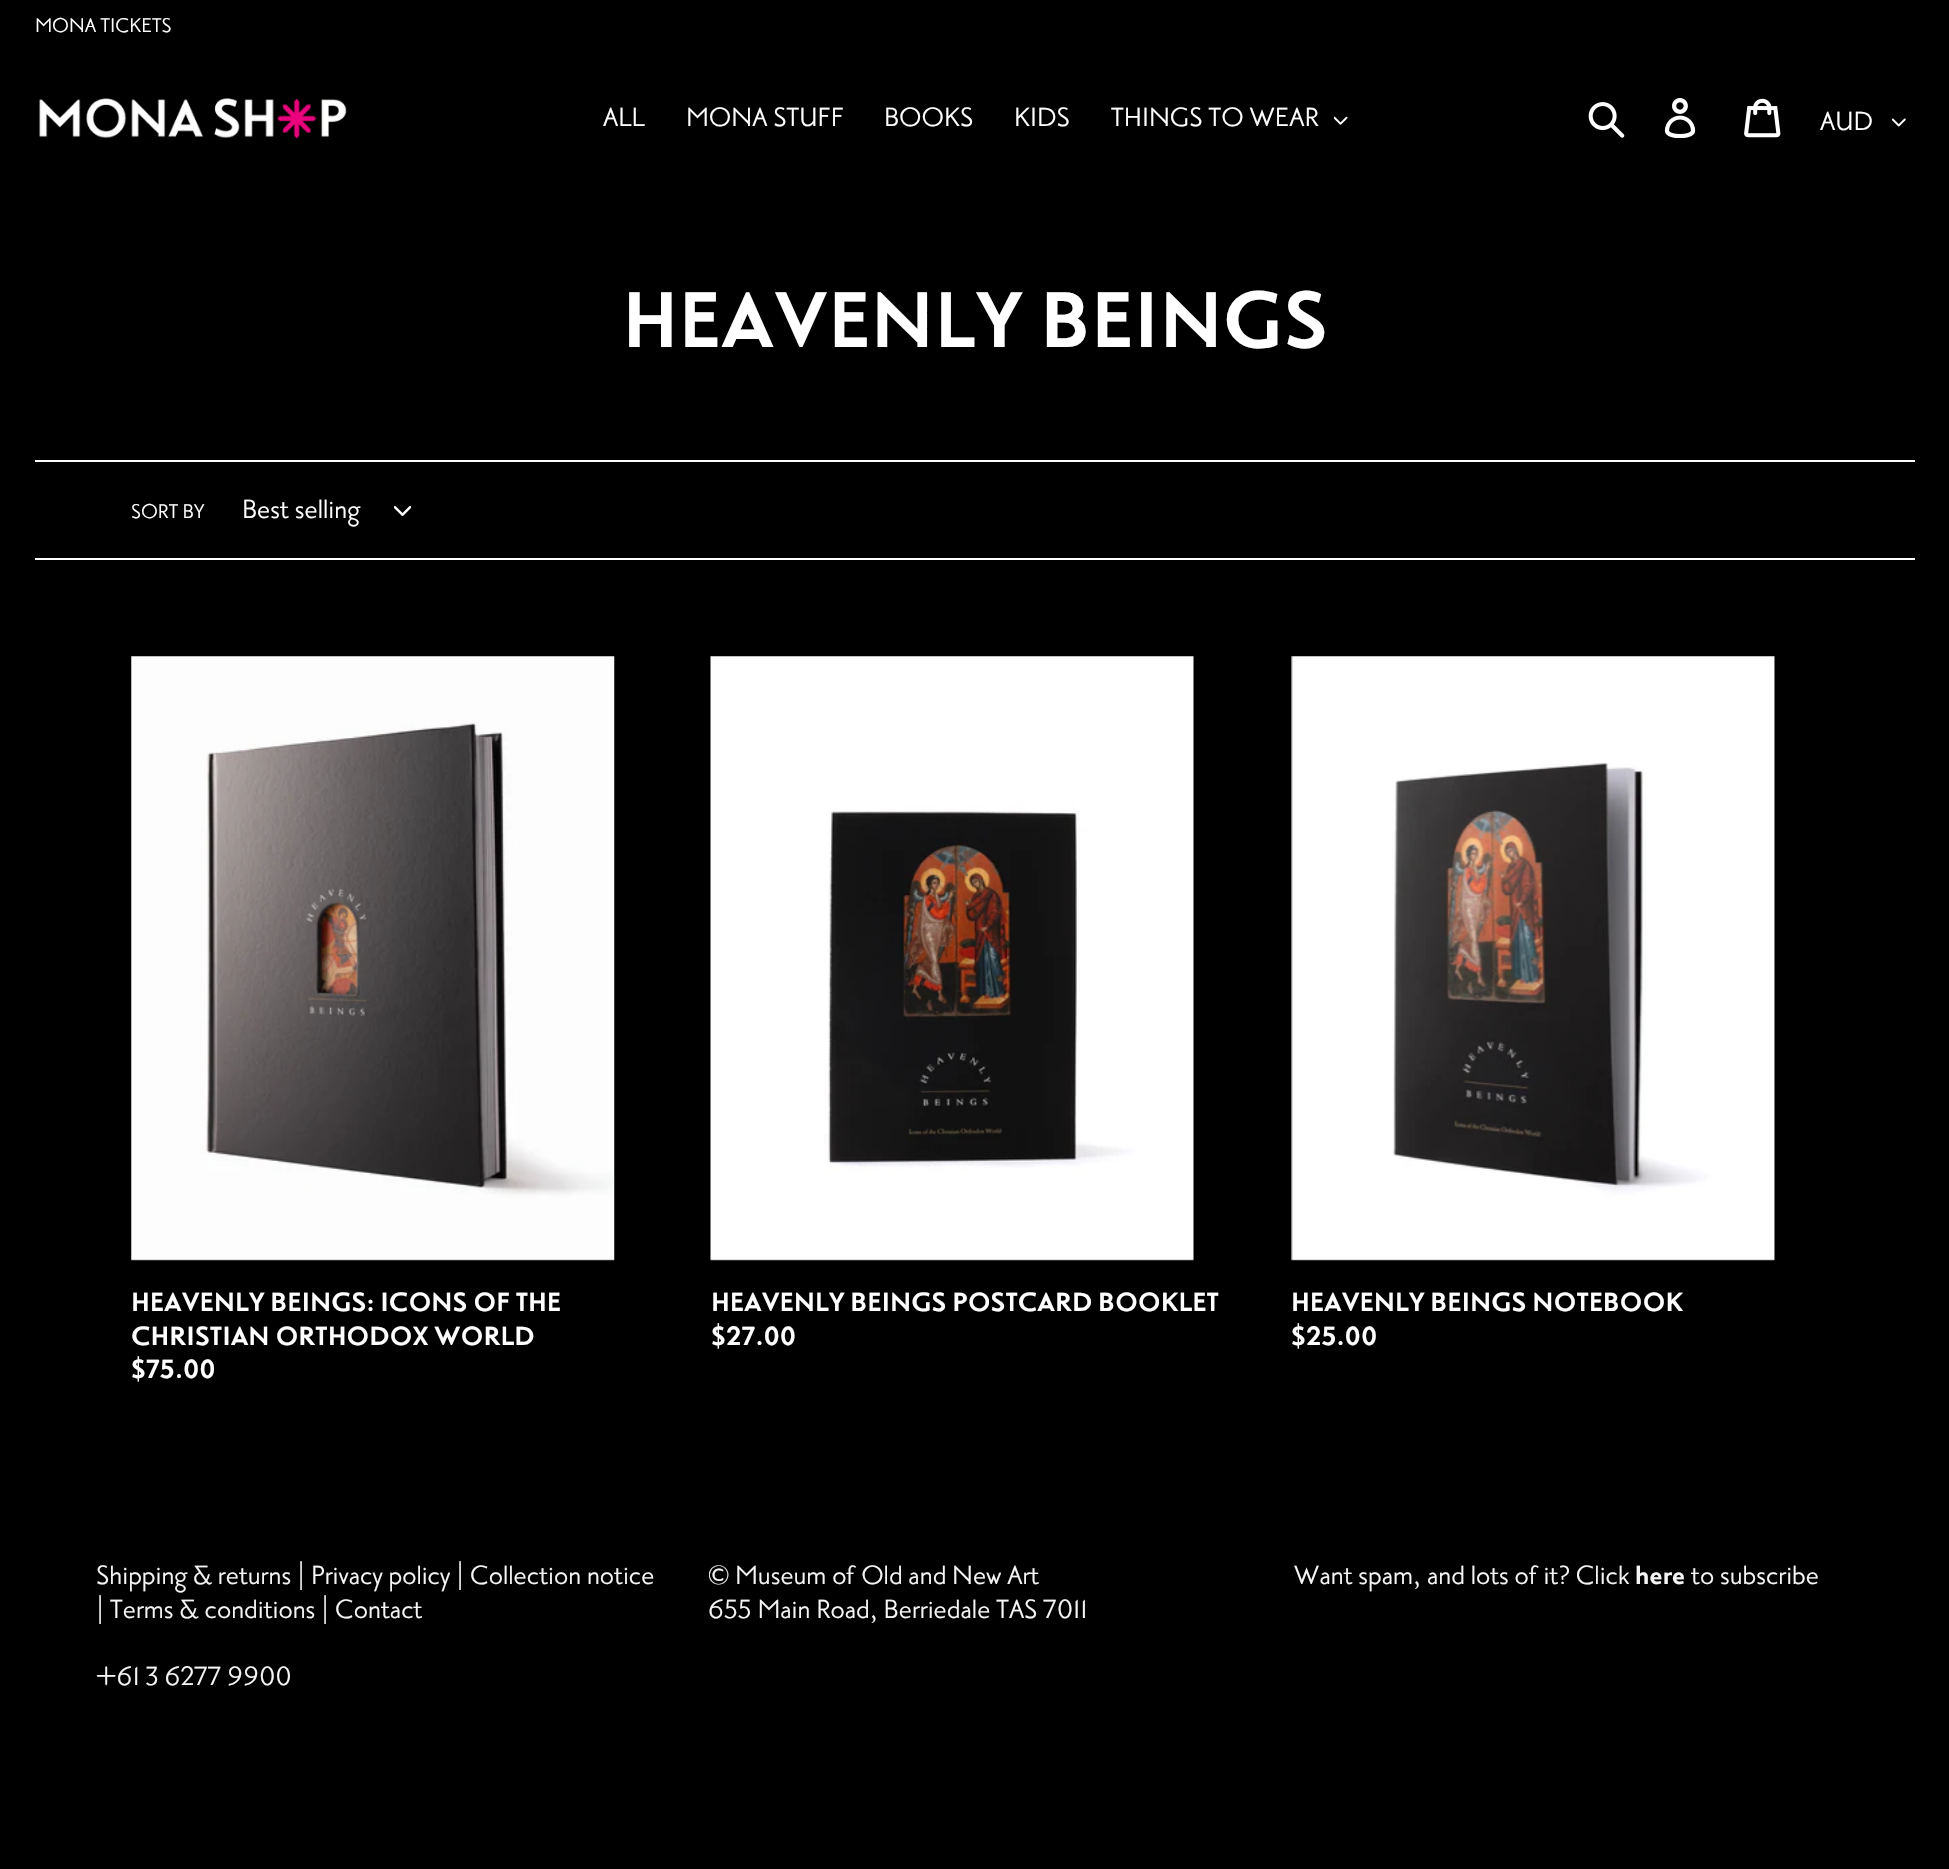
#include "include/core/SkBlurTypes.h"
#include "include/core/SkCanvas.h"
#include "include/core/SkData.h"
#include "include/core/SkFont.h"
#include "include/core/SkFontMgr.h"
#include "include/core/SkImage.h"
#include "include/core/SkMaskFilter.h"
#include "include/core/SkPaint.h"
#include "include/core/SkPathBuilder.h"
#include "include/core/SkTextBlob.h"
#include "include/effects/SkDashPathEffect.h"
#include "include/effects/SkGradientShader.h"
#include "include/utils/SkParsePath.h"

extern sk_sp<SkFontMgr> fontMgr;

void draw(SkCanvas* canvas) {
    SkPaint p;
    p.setAntiAlias(true);
    auto font = [&](const char* family, int weight, float size, bool italic = false) {
        SkFontStyle style(weight, SkFontStyle::kNormal_Width,
            italic ? SkFontStyle::kItalic_Slant : SkFontStyle::kUpright_Slant);
        SkFont result(fontMgr->matchFamilyStyle(family, style), size);
        result.setSubpixel(true);
        return result;
    };
    auto drawPhoto = [&](const char* path, float l, float t, float r, float b) {
        auto image = SkImages::DeferredFromEncodedData(SkData::MakeFromFileName(path));
        canvas->drawImageRect(image, SkRect::MakeLTRB(l, t, r, b), SkSamplingOptions());
    };
    canvas->clear(0xFF000000);
    auto font1 = font("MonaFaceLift", 400, 21);
    p.setColor(0xFFFFFFFF);
    canvas->drawString("MONA TICKETS", 35, 32, font1, p);
    drawPhoto("media/1.png", 39, 98, 347, 139);
    auto font2 = font("MonaFaceLift", 400, 28);
    {
        const struct { const char* s; float x, y; } items[] = {
            {"ALL", 603, 126},
            {"MONA STUFF", 686, 126},
            {"BOOKS", 884, 126},
            {"KIDS", 1014, 126},
            {"THINGS TO WEAR", 1111, 126},
        };
        for (auto [s, x, y] : items) {
            canvas->drawString(s, x, y, font2, p);
        }
    }
    drawPhoto("media/2.png", 1334, 116, 1348, 125);
    drawPhoto("media/3.png", 1588, 102, 1625, 138);
    drawPhoto("media/4.png", 1664, 98, 1696, 138);
    drawPhoto("media/5.png", 1744, 98, 1781, 138);
    canvas->drawString("AUD", 1820, 130, font2, p);
    drawPhoto("media/6.png", 1892, 118, 1906, 127);
    auto font3 = font("MonaFaceLift", 700, 84);
    canvas->drawString("HEAVENLY BEINGS", 622, 347, font3, p);
    canvas->drawRect(SkRect::MakeLTRB(35, 460, 1915, 462), p);
    canvas->drawRect(SkRect::MakeLTRB(35, 558, 1915, 560), p);
    canvas->drawString("SORT BY", 131, 518, font1, p);
    canvas->drawString("Best selling", 242, 518, font2, p);
    drawPhoto("media/7.png", 394, 506, 411, 516);
    drawPhoto("media/8.png", 131, 656, 615, 1261);
    auto font4 = font("MonaFaceLift", 700, 28);
    {
        const struct { const char* s; float x, y; } items[] = {
            {"HEAVENLY BEINGS: ICONS OF THE", 131, 1311},
            {"CHRISTIAN ORTHODOX WORLD", 131, 1345},
            {"$75.00", 131, 1378},
        };
        for (auto [s, x, y] : items) {
            canvas->drawString(s, x, y, font4, p);
        }
    }
    drawPhoto("media/9.png", 710, 656, 1194, 1261);
    canvas->drawString("HEAVENLY BEINGS POSTCARD BOOKLET", 711, 1311, font4, p);
    canvas->drawString("$27.00", 711, 1345, font4, p);
    drawPhoto("media/10.png", 1291, 656, 1775, 1261);
    canvas->drawString("HEAVENLY BEINGS NOTEBOOK", 1291, 1311, font4, p);
    canvas->drawString("$25.00", 1291, 1345, font4, p);
    p.setColor(0xFFF5F5F5);
    {
        const struct { const char* s; float x, y; } items[] = {
            {"Shipping & returns | Privacy policy | Collection notice", 96, 1584},
            {"| Terms & conditions | Contact", 96, 1618},
            {"+61 3 6277 9900", 96, 1685},
            {"© Museum of Old and New Art", 708, 1584},
            {"655 Main Road, Berriedale TAS 7011", 708, 1618},
            {"Want spam, and lots of it? Click", 1294, 1584},
        };
        for (auto [s, x, y] : items) {
            canvas->drawString(s, x, y, font2, p);
        }
    }
    canvas->drawString("here", 1635, 1584, font4, p);
    canvas->drawString("to subscribe", 1691, 1584, font2, p);
}
